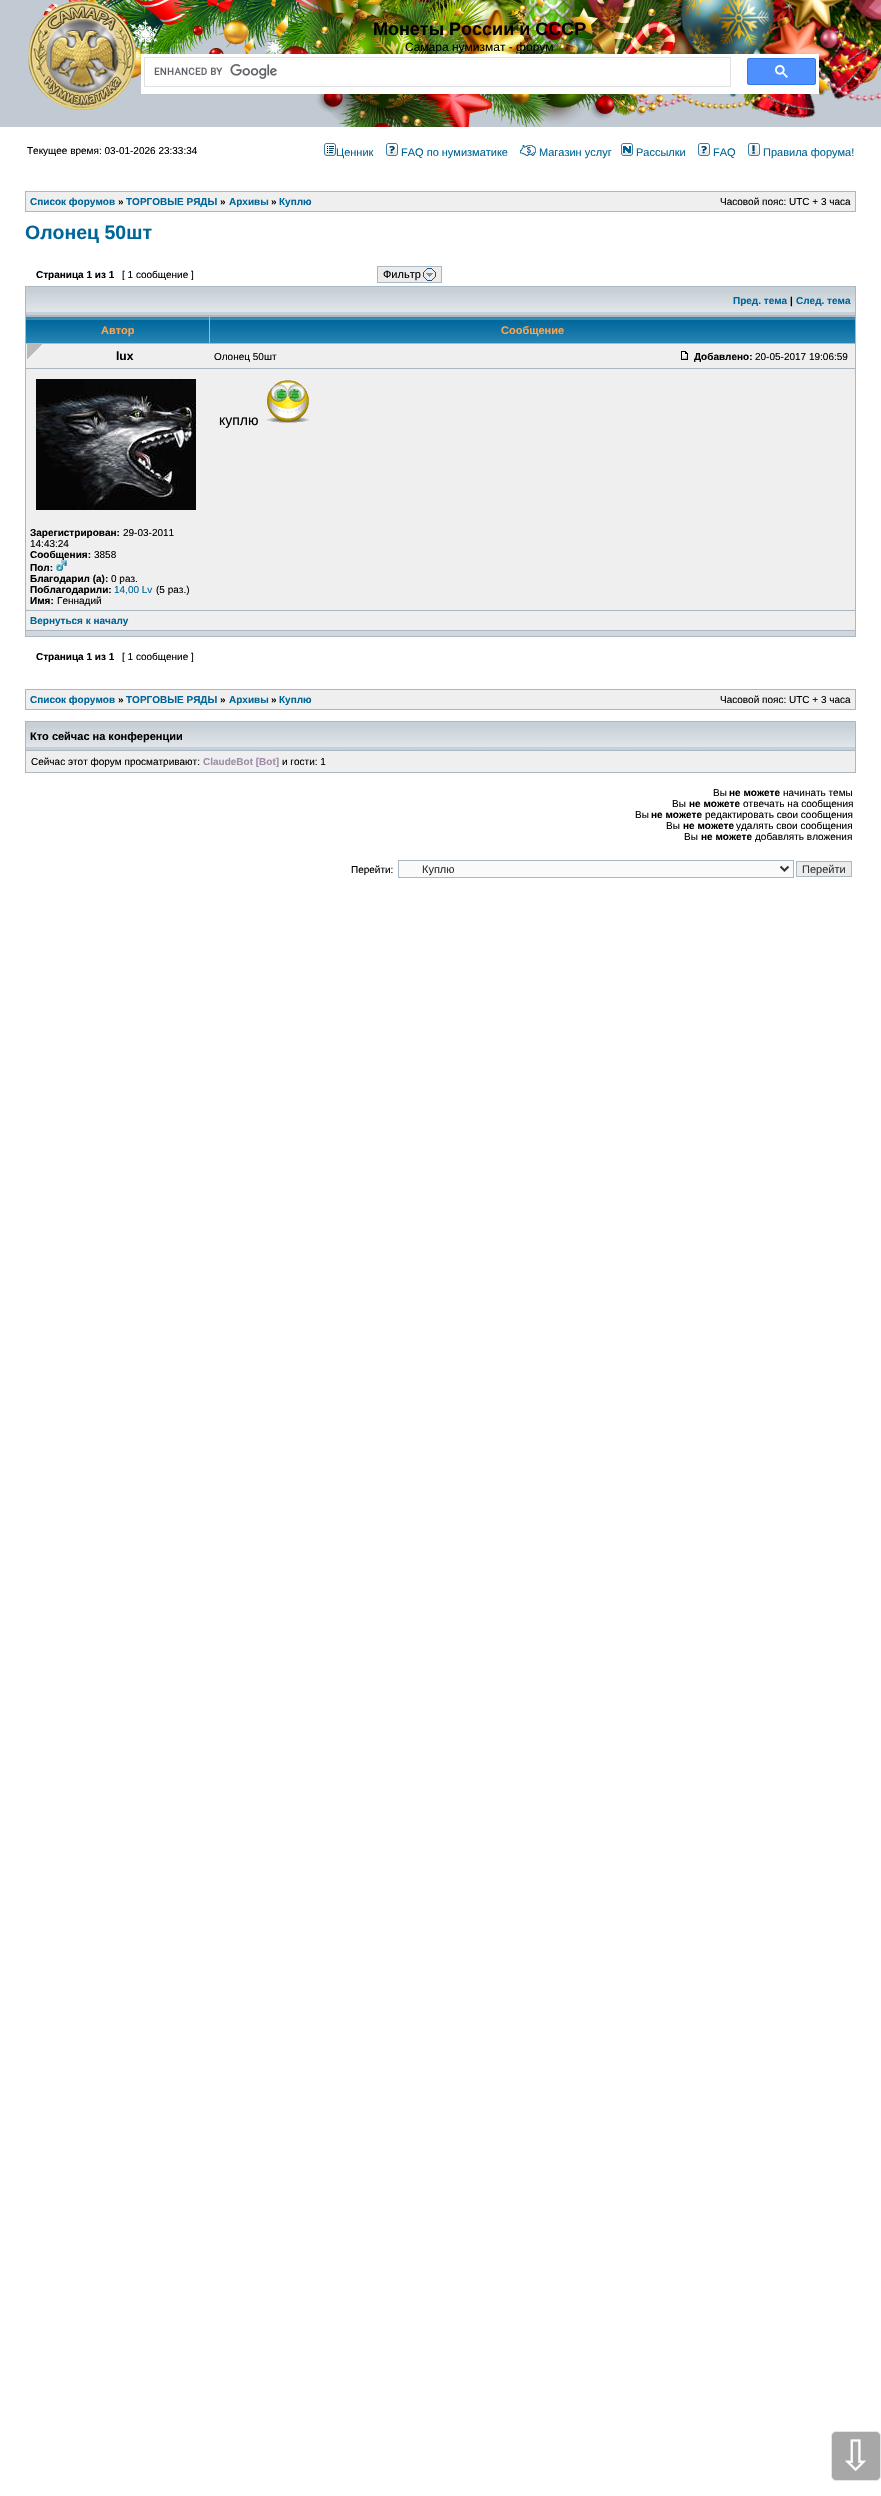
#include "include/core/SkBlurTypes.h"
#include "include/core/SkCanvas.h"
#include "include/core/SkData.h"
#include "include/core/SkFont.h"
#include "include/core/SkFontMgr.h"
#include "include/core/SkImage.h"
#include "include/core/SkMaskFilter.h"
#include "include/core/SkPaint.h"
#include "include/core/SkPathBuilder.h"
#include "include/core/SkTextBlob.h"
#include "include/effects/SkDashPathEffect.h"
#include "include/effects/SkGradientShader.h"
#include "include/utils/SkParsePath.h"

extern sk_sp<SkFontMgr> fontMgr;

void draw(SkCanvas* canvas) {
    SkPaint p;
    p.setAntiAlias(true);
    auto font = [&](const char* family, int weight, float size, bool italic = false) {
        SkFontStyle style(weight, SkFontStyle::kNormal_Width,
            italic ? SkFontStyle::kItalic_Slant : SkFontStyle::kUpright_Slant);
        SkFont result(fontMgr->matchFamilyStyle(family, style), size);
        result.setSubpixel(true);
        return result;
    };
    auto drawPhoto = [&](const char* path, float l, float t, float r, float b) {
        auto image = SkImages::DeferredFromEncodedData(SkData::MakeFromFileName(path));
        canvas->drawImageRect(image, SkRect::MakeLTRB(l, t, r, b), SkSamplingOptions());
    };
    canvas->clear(0xFFFFFFFF);
    p.setColor(0xFFC1CAD2);
    canvas->drawRect(SkRect::MakeLTRB(0, 0, 881, 127), p);
    drawPhoto("media/1.png", 43, 0, 881, 127);
    drawPhoto("media/2.png", 28, 0, 137, 110);
    auto font1 = font("Liberation Sans", 700, 18);
    p.setColor(0xFF000000);
    canvas->drawString("Монеты России и СССР", 373, 35, font1, p);
    auto font2 = font("Liberation Sans", 400, 12);
    canvas->drawString("Самара нумизмат - форум", 405, 51, font2, p);
    p.setColor(0xFFFFFFFF);
    canvas->drawRect(SkRect::MakeLTRB(141, 54, 819, 94), p);
    p.setStyle(SkPaint::kStroke_Style);
    p.setStrokeWidth(1);
    p.setColor(0xFFDFE1E5);
    canvas->drawRect(SkRect::MakeLTRB(144.5f, 57.5f, 730.5f, 86.5f), p);
    drawPhoto("media/3.png", 154, 64, 277, 79);
    p.setStyle(SkPaint::kFill_Style);
    p.setColor(0xFF4D90FE);
    canvas->drawRoundRect(SkRect::MakeLTRB(747.5f, 58.5f, 815.5f, 84.5f), 1.5f, 1.5f, p);
    p.setStyle(SkPaint::kStroke_Style);
    p.setColor(0xFF3079ED);
    canvas->drawRoundRect(SkRect::MakeLTRB(747.5f, 58.5f, 815.5f, 84.5f), 1.5f, 1.5f, p);
    drawPhoto("media/4.png", 775, 65, 788, 78);
    auto font3 = font("Liberation Sans", 400, 10);
    p.setStyle(SkPaint::kFill_Style);
    p.setColor(0xFF000000);
    canvas->drawString("Текущее время: 03-01-2026 23:33:34", 27, 154, font3, p);
    drawPhoto("media/5.png", 324, 143, 336, 156);
    auto font4 = font("Liberation Sans", 400, 11);
    p.setColor(0xFF006597);
    canvas->drawString("Ценник", 336, 156, font4, p);
    drawPhoto("media/6.png", 386, 143, 398, 156);
    canvas->drawString("FAQ по нумизматике", 401, 156, font4, p);
    drawPhoto("media/7.png", 520, 145, 536, 156);
    canvas->drawString("Магазин услуг", 539, 156, font4, p);
    drawPhoto("media/8.png", 621, 143, 633, 156);
    canvas->drawString("Рассылки", 636, 156, font4, p);
    drawPhoto("media/6.png", 698, 143, 710, 156);
    canvas->drawString("FAQ", 713, 156, font4, p);
    drawPhoto("media/9.png", 748, 143, 760, 156);
    canvas->drawString("Правила форума!", 763, 156, font4, p);
    p.setColor(0xFFA9B8C2);
    canvas->drawRect(SkRect::MakeLTRB(25, 191, 856, 212), p);
    p.setColor(0xFFEFEFEF);
    canvas->drawRect(SkRect::MakeLTRB(26, 192, 855, 211), p);
    auto font5 = font("Liberation Sans", 700, 10);
    p.setColor(0xFF006597);
    canvas->drawString("Список форумов", 30, 205, font5, p);
    p.setColor(0xFF000000);
    canvas->drawString("»", 118, 205, font5, p);
    p.setColor(0xFF006597);
    canvas->drawString("ТОРГОВЫЕ РЯДЫ", 126, 205, font5, p);
    p.setColor(0xFF000000);
    canvas->drawString("»", 220, 205, font5, p);
    p.setColor(0xFF006597);
    canvas->drawString("Архивы", 229, 205, font5, p);
    p.setColor(0xFF000000);
    canvas->drawString("»", 271, 205, font5, p);
    p.setColor(0xFF006597);
    canvas->drawString("Куплю", 279, 205, font5, p);
    p.setColor(0xFF000000);
    canvas->drawString("Часовой пояс: UTC + 3 часа", 720, 205, font3, p);
    auto font6 = font("Liberation Sans", 700, 19.5f);
    p.setColor(0xFF006597);
    canvas->drawString("Олонец 50шт", 25, 239, font6, p);
    p.setColor(0xFF000000);
    canvas->drawString("Страница 1 из 1", 36, 278, font5, p);
    canvas->drawString("[ 1 сообщение ]", 122, 278, font3, p);
    p.setColor(0xFFECECEC);
    canvas->drawRect(SkRect::MakeLTRB(377.5f, 266.5f, 441.5f, 282.5f), p);
    p.setStyle(SkPaint::kStroke_Style);
    p.setColor(0xFFA9B8C2);
    canvas->drawRect(SkRect::MakeLTRB(377.5f, 266.5f, 441.5f, 282.5f), p);
    p.setStyle(SkPaint::kFill_Style);
    p.setColor(0xFF000000);
    canvas->drawString("Фильтр", 383, 278, font4, p);
    drawPhoto("media/10.png", 423, 268, 436, 281);
    p.setColor(0xFFA9B8C2);
    canvas->drawRect(SkRect::MakeLTRB(25, 286, 856, 637), p);
    p.setColor(0xFFC7D0D7);
    canvas->drawRect(SkRect::MakeLTRB(26, 287, 855, 315), p);
    drawPhoto("media/11.png", 26, 293, 855, 312);
    p.setColor(0xFF006597);
    canvas->drawString("Пред. тема", 733, 304, font5, p);
    p.setColor(0xFF000000);
    canvas->drawString("|", 790, 304, font5, p);
    p.setColor(0xFF006597);
    canvas->drawString("След. тема", 796, 304, font5, p);
    drawPhoto("media/12.png", 26, 317, 209, 343);
    auto font7 = font("Liberation Sans", 700, 11);
    p.setColor(0xFFFFA34F);
    canvas->drawString("Автор", 101, 334, font7, p);
    drawPhoto("media/13.png", 210, 317, 855, 343);
    canvas->drawString("Сообщение", 501, 334, font7, p);
    p.setColor(0xFFEFEFEF);
    canvas->drawRect(SkRect::MakeLTRB(26, 344, 855, 368), p);
    drawPhoto("media/14.png", 27, 343, 43, 359);
    auto font8 = font("Liberation Sans", 700, 12);
    p.setColor(0xFF000000);
    canvas->drawString("lux", 116, 360, font8, p);
    canvas->drawString("Олонец 50шт", 214, 360, font3, p);
    drawPhoto("media/15.png", 681, 351, 688, 360);
    canvas->drawString("Добавлено:", 694, 360, font5, p);
    canvas->drawString("20-05-2017 19:06:59", 755, 360, font3, p);
    p.setColor(0xFFEFEFEF);
    canvas->drawRect(SkRect::MakeLTRB(26, 369, 855, 610), p);
    auto font9 = font("Liberation Sans", 400, 14);
    p.setColor(0xFF000000);
    canvas->drawString("куплю", 219, 425, font9, p);
    drawPhoto("media/16.png", 266, 380, 309, 423);
    drawPhoto("media/17.png", 36, 379, 196, 510);
    canvas->drawString("Зарегистрирован:", 30, 536, font5, p);
    canvas->drawString("29-03-2011", 123, 536, font3, p);
    canvas->drawString("14:43:24", 30, 547, font3, p);
    canvas->drawString("Сообщения:", 30, 558, font5, p);
    canvas->drawString("3858", 94, 558, font3, p);
    canvas->drawString("Пол:", 30, 571, font5, p);
    drawPhoto("media/18.png", 56, 560, 67, 571);
    canvas->drawString("Благодарил (а):", 30, 582, font5, p);
    canvas->drawString("0 раз.", 111, 582, font3, p);
    canvas->drawString("Поблагодарили:", 30, 593, font5, p);
    p.setColor(0xFF006597);
    canvas->drawString("14,00 Lv", 114, 593, font3, p);
    p.setColor(0xFF000000);
    canvas->drawString("(5 раз.)", 156, 593, font3, p);
    canvas->drawString("Имя:", 30, 604, font5, p);
    canvas->drawString("Геннадий", 57, 604, font3, p);
    p.setColor(0xFFEFEFEF);
    canvas->drawRect(SkRect::MakeLTRB(26, 611, 855, 630), p);
    p.setColor(0xFF006597);
    canvas->drawString("Вернуться к началу", 30, 624, font5, p);
    p.setColor(0xFFD1D7DC);
    canvas->drawRect(SkRect::MakeLTRB(26, 631, 855, 636), p);
    p.setColor(0xFF000000);
    canvas->drawString("Страница 1 из 1", 36, 660, font5, p);
    canvas->drawString("[ 1 сообщение ]", 122, 660, font3, p);
    p.setColor(0xFFA9B8C2);
    canvas->drawRect(SkRect::MakeLTRB(25, 689, 856, 710), p);
    p.setColor(0xFFEFEFEF);
    canvas->drawRect(SkRect::MakeLTRB(26, 690, 855, 709), p);
    p.setColor(0xFF006597);
    canvas->drawString("Список форумов", 30, 703, font5, p);
    p.setColor(0xFF000000);
    canvas->drawString("»", 118, 703, font5, p);
    p.setColor(0xFF006597);
    canvas->drawString("ТОРГОВЫЕ РЯДЫ", 126, 703, font5, p);
    p.setColor(0xFF000000);
    canvas->drawString("»", 220, 703, font5, p);
    p.setColor(0xFF006597);
    canvas->drawString("Архивы", 229, 703, font5, p);
    p.setColor(0xFF000000);
    canvas->drawString("»", 271, 703, font5, p);
    p.setColor(0xFF006597);
    canvas->drawString("Куплю", 279, 703, font5, p);
    p.setColor(0xFF000000);
    canvas->drawString("Часовой пояс: UTC + 3 часа", 720, 703, font3, p);
    p.setColor(0xFFA9B8C2);
    canvas->drawRect(SkRect::MakeLTRB(25, 721, 856, 773), p);
    p.setColor(0xFFC7D0D7);
    canvas->drawRect(SkRect::MakeLTRB(26, 722, 855, 750), p);
    drawPhoto("media/11.png", 26, 728, 855, 747);
    p.setColor(0xFF000000);
    canvas->drawString("Кто сейчас на конференции", 30, 740, font7, p);
    p.setColor(0xFFEFEFEF);
    canvas->drawRect(SkRect::MakeLTRB(26, 751, 855, 772), p);
    p.setColor(0xFF000000);
    canvas->drawString("Сейчас этот форум просматривают:", 31, 765, font3, p);
    p.setColor(0xFF9E8DA7);
    canvas->drawString("ClaudeBot [Bot]", 203, 765, font5, p);
    p.setColor(0xFF000000);
    canvas->drawString("и гости: 1", 282, 765, font3, p);
    canvas->drawString("Вы", 713, 796, font3, p);
    canvas->drawString("не можете", 729, 796, font5, p);
    canvas->drawString("начинать темы", 783, 796, font3, p);
    canvas->drawString("Вы", 672, 807, font3, p);
    canvas->drawString("не можете", 689, 807, font5, p);
    canvas->drawString("отвечать на сообщения", 743, 807, font3, p);
    canvas->drawString("Вы", 635, 818, font3, p);
    canvas->drawString("не можете", 651, 818, font5, p);
    canvas->drawString("редактировать свои сообщения", 705, 818, font3, p);
    canvas->drawString("Вы", 666, 829, font3, p);
    canvas->drawString("не можете", 683, 829, font5, p);
    canvas->drawString("удалять свои сообщения", 736, 829, font3, p);
    canvas->drawString("Вы", 684, 840, font3, p);
    canvas->drawString("не можете", 701, 840, font5, p);
    canvas->drawString("добавлять вложения", 755, 840, font3, p);
    canvas->drawString("Перейти:", 351, 873, font3, p);
    p.setColor(0xFFFAFAFA);
    canvas->drawRect(SkRect::MakeLTRB(398.5f, 860.5f, 793.5f, 877.5f), p);
    p.setStyle(SkPaint::kStroke_Style);
    p.setColor(0xFFA9B8C2);
    canvas->drawRect(SkRect::MakeLTRB(398.5f, 860.5f, 793.5f, 877.5f), p);
    p.setStrokeWidth(2);
    p.setColor(0xFF333333);
    canvas->drawPath(SkPathBuilder().moveTo(780.5f, 866.5f).lineTo(784.5f, 870.5f).lineTo(788.5f, 866.5f).detach(), p);
    p.setStyle(SkPaint::kFill_Style);
    canvas->drawString("Куплю", 422, 873, font4, p);
    p.setColor(0xFFECECEC);
    canvas->drawRect(SkRect::MakeLTRB(796.5f, 861.5f, 851.5f, 876.5f), p);
    p.setStyle(SkPaint::kStroke_Style);
    p.setStrokeWidth(1);
    p.setColor(0xFFA9B8C2);
    canvas->drawRect(SkRect::MakeLTRB(796.5f, 861.5f, 851.5f, 876.5f), p);
    p.setStyle(SkPaint::kFill_Style);
    p.setColor(0xFF333333);
    canvas->drawString("Перейти", 802, 873, font4, p);
    p.setColor(0xFFA7A7A7);
    canvas->drawRoundRect(SkRect::MakeLTRB(831.5f, 2431.5f, 880.5f, 2480.5f), 4.5f, 4.5f, p);
    p.setStyle(SkPaint::kStroke_Style);
    p.setColor(0xFFE6E6E6);
    canvas->drawRoundRect(SkRect::MakeLTRB(831.5f, 2431.5f, 880.5f, 2480.5f), 4.5f, 4.5f, p);
    auto font10 = font("DejaVu Sans", 400, 42);
    p.setStyle(SkPaint::kFill_Style);
    p.setColor(0xFFFFFFFF);
    canvas->drawString("⇩", 838, 2470, font10, p);
}
